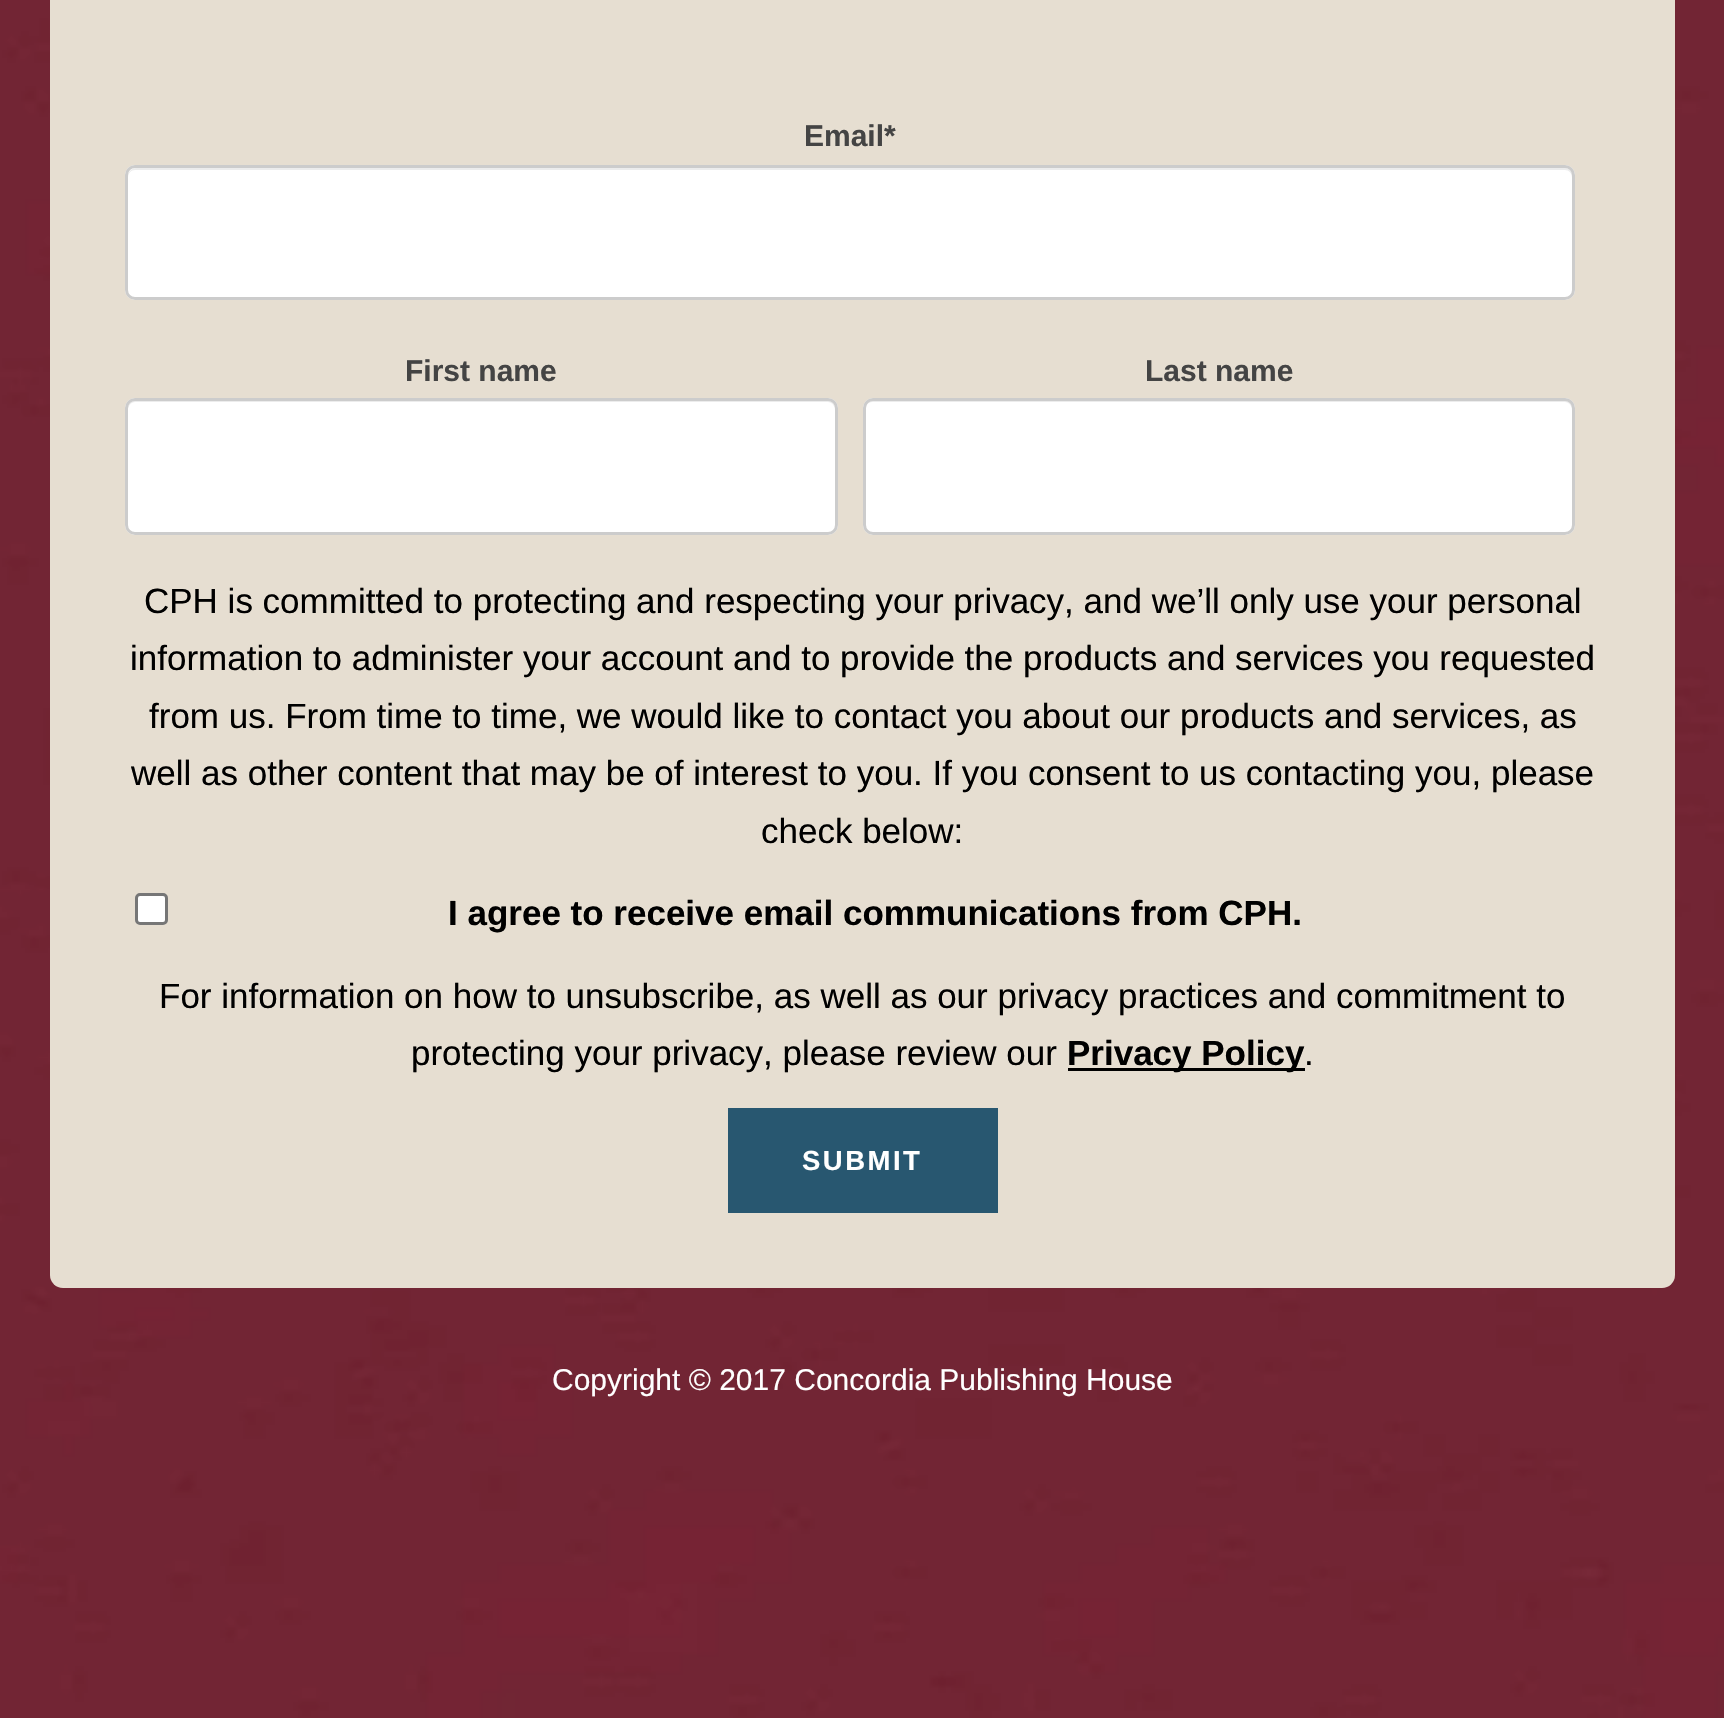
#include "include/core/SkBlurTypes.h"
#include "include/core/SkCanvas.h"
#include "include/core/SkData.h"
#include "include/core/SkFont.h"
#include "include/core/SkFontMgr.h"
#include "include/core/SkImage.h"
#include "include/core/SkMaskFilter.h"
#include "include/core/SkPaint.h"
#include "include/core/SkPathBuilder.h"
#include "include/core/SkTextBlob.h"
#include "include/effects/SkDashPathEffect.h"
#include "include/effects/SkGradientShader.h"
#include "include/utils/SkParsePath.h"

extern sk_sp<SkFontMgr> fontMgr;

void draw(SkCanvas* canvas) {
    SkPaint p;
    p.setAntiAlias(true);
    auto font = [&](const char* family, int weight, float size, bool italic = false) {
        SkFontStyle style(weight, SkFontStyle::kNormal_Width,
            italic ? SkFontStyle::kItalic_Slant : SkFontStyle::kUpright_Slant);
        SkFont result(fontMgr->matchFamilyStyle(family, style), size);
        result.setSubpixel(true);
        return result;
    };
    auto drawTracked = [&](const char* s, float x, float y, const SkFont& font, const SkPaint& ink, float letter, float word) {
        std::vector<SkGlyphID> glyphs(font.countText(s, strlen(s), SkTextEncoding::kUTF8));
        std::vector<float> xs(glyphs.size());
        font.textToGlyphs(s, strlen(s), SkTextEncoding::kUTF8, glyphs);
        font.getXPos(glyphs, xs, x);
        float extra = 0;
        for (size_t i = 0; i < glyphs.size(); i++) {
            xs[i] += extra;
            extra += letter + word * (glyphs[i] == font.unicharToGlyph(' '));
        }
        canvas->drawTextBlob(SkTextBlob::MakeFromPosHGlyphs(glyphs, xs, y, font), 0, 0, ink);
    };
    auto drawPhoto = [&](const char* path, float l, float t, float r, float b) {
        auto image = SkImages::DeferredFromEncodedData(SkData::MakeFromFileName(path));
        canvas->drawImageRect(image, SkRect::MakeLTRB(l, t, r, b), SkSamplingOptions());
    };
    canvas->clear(0xFFFFFFFF);
    drawPhoto("media/1.png", 0, 0, 1724, 1718);
    p.setColor(0xFFE6DED1);
    canvas->drawRoundRect(SkRect::MakeLTRB(50, -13, 1675, 1288), 13, 13, p);
    auto font1 = font("Liberation Sans", 700, 30);
    p.setColor(0xFF444444);
    canvas->drawString("Email*", 804, 146, font1, p);
    p.setColor(0xFFFFFFFF);
    canvas->drawRoundRect(SkRect::MakeLTRB(125, 165, 1575, 300), 10, 10, p);
    p.setColor(0xFFECECEC);
    canvas->drawPath(SkPathBuilder().moveTo(135, 170).lineTo(1565, 170).cubicTo(1569, 170, 1572, 173, 1572, 178).lineTo(1572, 294).cubicTo(1573, 293, 1573, 292, 1573, 290).lineTo(1573, 176).cubicTo(1573, 172, 1569, 168, 1565, 168).lineTo(136, 168).cubicTo(132, 168, 128, 172, 128, 176).lineTo(128, 178).cubicTo(128, 173, 131, 170, 135, 170).close().detach(), p);
    p.setStyle(SkPaint::kStroke_Style);
    p.setStrokeWidth(3);
    p.setColor(0xFFCCCCCC);
    canvas->drawRoundRect(SkRect::MakeLTRB(126.5f, 166.5f, 1573.5f, 298.5f), 8.5f, 8.5f, p);
    p.setStyle(SkPaint::kFill_Style);
    p.setColor(0xFF444444);
    canvas->drawString("First name", 405, 381, font1, p);
    p.setColor(0xFFFFFFFF);
    canvas->drawRoundRect(SkRect::MakeLTRB(125, 398, 838, 535), 10, 10, p);
    p.setColor(0xFFECECEC);
    canvas->drawPath(SkPathBuilder().moveTo(135, 402).lineTo(828, 402).cubicTo(832, 402, 835, 406, 835, 410).lineTo(835, 408).cubicTo(835, 404, 831, 400, 827, 400).lineTo(136, 400).cubicTo(132, 400, 128, 404, 128, 408).lineTo(128, 410).cubicTo(128, 406, 131, 402, 135, 402).close().detach(), p);
    p.setStyle(SkPaint::kStroke_Style);
    p.setColor(0xFFCCCCCC);
    canvas->drawRoundRect(SkRect::MakeLTRB(126.5f, 399.5f, 836.5f, 533.5f), 8.5f, 8.5f, p);
    p.setStyle(SkPaint::kFill_Style);
    p.setColor(0xFF444444);
    canvas->drawString("Last name", 1145, 381, font1, p);
    p.setColor(0xFFFFFFFF);
    canvas->drawRoundRect(SkRect::MakeLTRB(863, 398, 1575, 535), 10, 10, p);
    p.setColor(0xFFECECEC);
    canvas->drawPath(SkPathBuilder().moveTo(872, 402).lineTo(1565, 402).cubicTo(1569, 402, 1572, 406, 1572, 410).lineTo(1572, 529).cubicTo(1573, 528, 1573, 526, 1573, 525).lineTo(1573, 408).cubicTo(1573, 404, 1569, 400, 1565, 400).lineTo(873, 400).cubicTo(869, 400, 865, 404, 865, 408).lineTo(865, 410).cubicTo(865, 406, 868, 402, 872, 402).close().detach(), p);
    p.setStyle(SkPaint::kStroke_Style);
    p.setColor(0xFFCCCCCC);
    canvas->drawRoundRect(SkRect::MakeLTRB(864.5f, 399.5f, 1573.5f, 533.5f), 8.5f, 8.5f, p);
    auto font2 = font("Liberation Sans", 400, 35);
    p.setStyle(SkPaint::kFill_Style);
    p.setColor(0xFF000000);
    {
        const struct { const char* s; float x, y; } items[] = {
            {"CPH is committed to protecting and respecting your privacy, and we’ll only use your personal", 144, 613},
            {"information to administer your account and to provide the products and services you requested", 130, 670},
            {"from us. From time to time, we would like to contact you about our products and services, as", 149, 728},
            {"well as other content that may be of interest to you. If you consent to us contacting you, please", 131, 785},
            {"check below:", 761, 843},
        };
        for (auto [s, x, y] : items) {
            canvas->drawString(s, x, y, font2, p);
        }
    }
    p.setColor(0xFFFFFFFF);
    canvas->drawRoundRect(SkRect::MakeLTRB(136.5f, 894.5f, 166.5f, 923.5f), 3.5f, 3.5f, p);
    p.setStyle(SkPaint::kStroke_Style);
    p.setColor(0xFF767676);
    canvas->drawRoundRect(SkRect::MakeLTRB(136.5f, 894.5f, 166.5f, 923.5f), 3.5f, 3.5f, p);
    auto font3 = font("Liberation Sans", 700, 35);
    p.setStyle(SkPaint::kFill_Style);
    p.setColor(0xFF000000);
    canvas->drawString("I agree to receive email communications from CPH.", 448, 925, font3, p);
    canvas->drawString("For information on how to unsubscribe, as well as our privacy practices and commitment to", 159, 1008, font2, p);
    canvas->drawString("protecting your privacy, please review our", 411, 1065, font2, p);
    canvas->drawRect(SkRect::MakeLTRB(1068, 1068, 1305, 1071), p);
    canvas->drawString("Privacy Policy", 1067, 1065, font3, p);
    canvas->drawString(".", 1304, 1065, font2, p);
    p.setColor(0xFF285770);
    canvas->drawRect(SkRect::MakeLTRB(728, 1108, 998, 1213), p);
    auto font4 = font("Liberation Sans", 700, 27.5f);
    p.setColor(0xFFFFFFFF);
    drawTracked("SUBMIT", 802, 1170, font4, p, 2.5f, 0);
    auto font5 = font("Liberation Sans", 400, 30);
    canvas->drawString("Copyright © 2017 Concordia Publishing House", 552, 1390, font5, p);
}
